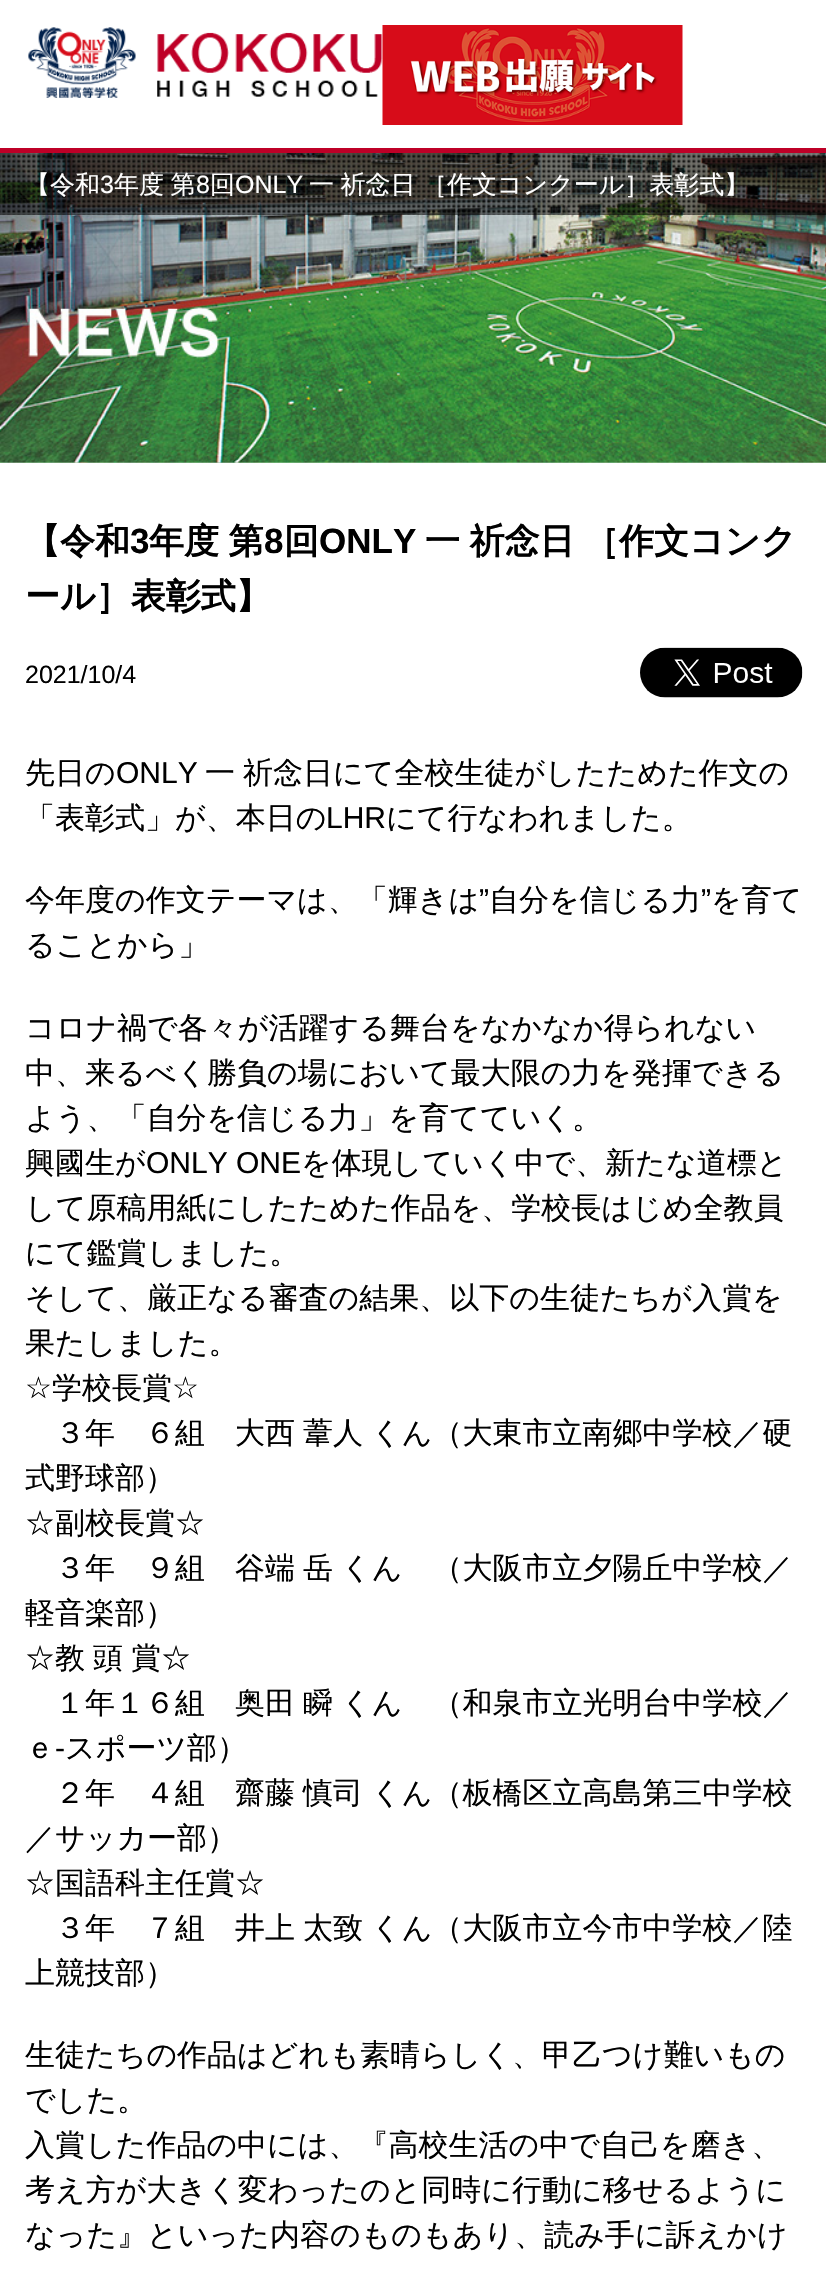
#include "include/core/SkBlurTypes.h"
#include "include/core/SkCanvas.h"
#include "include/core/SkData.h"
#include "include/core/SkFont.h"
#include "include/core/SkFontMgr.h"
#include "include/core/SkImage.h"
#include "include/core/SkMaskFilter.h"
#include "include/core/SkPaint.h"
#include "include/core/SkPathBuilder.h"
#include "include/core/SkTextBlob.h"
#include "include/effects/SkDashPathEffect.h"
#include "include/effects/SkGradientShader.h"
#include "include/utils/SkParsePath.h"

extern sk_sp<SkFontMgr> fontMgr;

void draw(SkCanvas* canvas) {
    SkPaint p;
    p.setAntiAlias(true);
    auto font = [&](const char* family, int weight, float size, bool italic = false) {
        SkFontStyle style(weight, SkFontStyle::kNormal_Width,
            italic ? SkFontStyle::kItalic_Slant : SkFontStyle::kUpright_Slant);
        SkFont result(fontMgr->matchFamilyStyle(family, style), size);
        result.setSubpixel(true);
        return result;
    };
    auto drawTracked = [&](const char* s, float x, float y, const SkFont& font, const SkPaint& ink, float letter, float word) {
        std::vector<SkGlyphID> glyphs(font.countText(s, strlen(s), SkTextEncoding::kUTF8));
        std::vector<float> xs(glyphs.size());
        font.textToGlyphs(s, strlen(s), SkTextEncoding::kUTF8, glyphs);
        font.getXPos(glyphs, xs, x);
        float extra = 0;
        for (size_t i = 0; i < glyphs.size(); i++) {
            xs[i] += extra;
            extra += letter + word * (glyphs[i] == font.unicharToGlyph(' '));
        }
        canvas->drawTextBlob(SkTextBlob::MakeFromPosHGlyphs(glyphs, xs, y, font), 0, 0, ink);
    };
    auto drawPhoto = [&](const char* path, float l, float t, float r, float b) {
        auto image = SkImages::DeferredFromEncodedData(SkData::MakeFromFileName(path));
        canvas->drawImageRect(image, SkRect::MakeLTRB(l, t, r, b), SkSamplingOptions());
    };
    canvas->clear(0xFFFFFFFF);
    p.setColor(0xFFBE0027);
    canvas->drawRect(SkRect::MakeLTRB(0, 148, 826, 153), p);
    drawPhoto("media/1.png", 28, 27, 383, 98);
    drawPhoto("media/2.png", 382, 25, 683, 125);
    drawPhoto("media/3.png", 0, 462, 826, 463);
    drawPhoto("media/4.png", 0, 153, 826, 463);
    drawPhoto("media/5.png", 0, 153, 826, 215);
    auto font1 = font("WenQuanYi Zen Hei", 500, 25);
    p.setColor(0xFFFFFFFF);
    canvas->drawString("【令和", 25, 193, font1, p);
    auto font2 = font("Liberation Sans", 400, 25);
    canvas->drawString("3", 100, 193, font2, p);
    drawTracked("年度 第", 114, 193, font1, p, 0, -1);
    canvas->drawString("8", 196, 193, font2, p);
    canvas->drawString("回", 210, 193, font1, p);
    canvas->drawString("ONLY", 235, 193, font2, p);
    drawTracked("一 祈念日 ［作文コンクール］表彰式】", 309, 193, font1, p, 0, -1);
    auto font3 = font("WenQuanYi Zen Hei", 700, 35);
    p.setColor(0xFF000000);
    canvas->drawString("【令和", 25, 553, font3, p);
    auto font4 = font("Liberation Sans", 700, 35);
    canvas->drawString("3", 130, 553, font4, p);
    drawTracked("年度 第", 149, 553, font3, p, 0, -1);
    canvas->drawString("8", 264, 553, font4, p);
    canvas->drawString("回", 284, 553, font3, p);
    canvas->drawString("ONLY", 319, 553, font4, p);
    drawTracked("一 祈念日 ［作文コンク", 425, 553, font3, p, 0, -1);
    canvas->drawString("ール］表彰式】", 25, 608, font3, p);
    canvas->drawString("2021/10/4", 25, 683, font2, p);
    drawPhoto("media/6.png", 640, 647, 803, 698);
    auto font5 = font("WenQuanYi Zen Hei", 500, 30);
    canvas->drawString("先日の", 25, 783, font5, p);
    auto font6 = font("Liberation Sans", 400, 30);
    canvas->drawString("ONLY", 116, 783, font6, p);
    drawTracked("一 祈念日にて全校生徒がしたためた作文の", 205, 783, font5, p, 0, -1);
    canvas->drawString("「表彰式」が、本日の", 25, 828, font5, p);
    canvas->drawString("LHR", 326, 828, font6, p);
    canvas->drawString("にて行なわれました。", 386, 828, font5, p);
    canvas->drawString("今年度の作文テーマは、「輝きは", 25, 910, font5, p);
    canvas->drawString("”", 479, 910, font6, p);
    canvas->drawString("自分を信じる力", 489, 910, font5, p);
    canvas->drawString("”", 701, 910, font6, p);
    {
        const struct { const char* s; float x, y; } items[] = {
            {"を育て", 711, 910},
            {"ることから」", 25, 955},
            {"コロナ禍で各々が活躍する舞台をなかなか得られない", 25, 1038},
            {"中、来るべく勝負の場において最大限の力を発揮できる", 25, 1083},
            {"よう、「自分を信じる力」を育てていく。", 25, 1128},
            {"興國生が", 25, 1173},
        };
        for (auto [s, x, y] : items) {
            canvas->drawString(s, x, y, font5, p);
        }
    }
    canvas->drawString("ONLY ONE", 146, 1173, font6, p);
    {
        const struct { const char* s; float x, y; } items[] = {
            {"を体現していく中で、新たな道標と", 301, 1173},
            {"して原稿用紙にしたためた作品を、学校長はじめ全教員", 25, 1218},
            {"にて鑑賞しました。", 25, 1263},
            {"そして、厳正なる審査の結果、以下の生徒たちが入賞を", 25, 1308},
            {"果たしました。", 25, 1353},
        };
        for (auto [s, x, y] : items) {
            canvas->drawString(s, x, y, font5, p);
        }
    }
    auto font7 = font("DejaVu Sans", 400, 30);
    canvas->drawString("☆", 25, 1398, font7, p);
    canvas->drawString("学校長賞", 52, 1398, font5, p);
    canvas->drawString("☆", 172, 1398, font7, p);
    drawTracked("３年　６組　大西 葦人 くん（大東市立南郷中学校／硬", 55, 1443, font5, p, 0, -1);
    canvas->drawString("式野球部）", 25, 1488, font5, p);
    canvas->drawString("☆副校長賞☆", 25, 1533, font5, p);
    drawTracked("３年　９組　谷端 岳 くん　（大阪市立夕陽丘中学校／", 55, 1578, font5, p, 0, -1);
    canvas->drawString("軽音楽部）", 25, 1623, font5, p);
    drawTracked("☆教 頭 賞☆", 25, 1668, font5, p, 0, -1);
    drawTracked("１年１６組　奥田 瞬 くん　（和泉市立光明台中学校／", 55, 1713, font5, p, 0, -1);
    canvas->drawString("ｅ", 25, 1758, font5, p);
    canvas->drawString("-", 55, 1758, font6, p);
    canvas->drawString("スポーツ部）", 65, 1758, font5, p);
    drawTracked("２年　４組　齋藤 慎司 くん（板橋区立高島第三中学校", 55, 1803, font5, p, 0, -1);
    canvas->drawString("／サッカー部）", 25, 1848, font5, p);
    canvas->drawString("☆国語科主任賞☆", 25, 1893, font5, p);
    drawTracked("３年　７組　井上 太致 くん（大阪市立今市中学校／陸", 55, 1938, font5, p, 0, -1);
    {
        const struct { const char* s; float x, y; } items[] = {
            {"上競技部）", 25, 1983},
            {"生徒たちの作品はどれも素晴らしく、甲乙つけ難いもの", 25, 2065},
            {"でした。", 25, 2110},
            {"入賞した作品の中には、『高校生活の中で自己を磨き、", 25, 2155},
            {"考え方が大きく変わったのと同時に行動に移せるように", 25, 2200},
            {"なった』といった内容のものもあり、読み手に訴えかけ", 25, 2245},
        };
        for (auto [s, x, y] : items) {
            canvas->drawString(s, x, y, font5, p);
        }
    }
}
